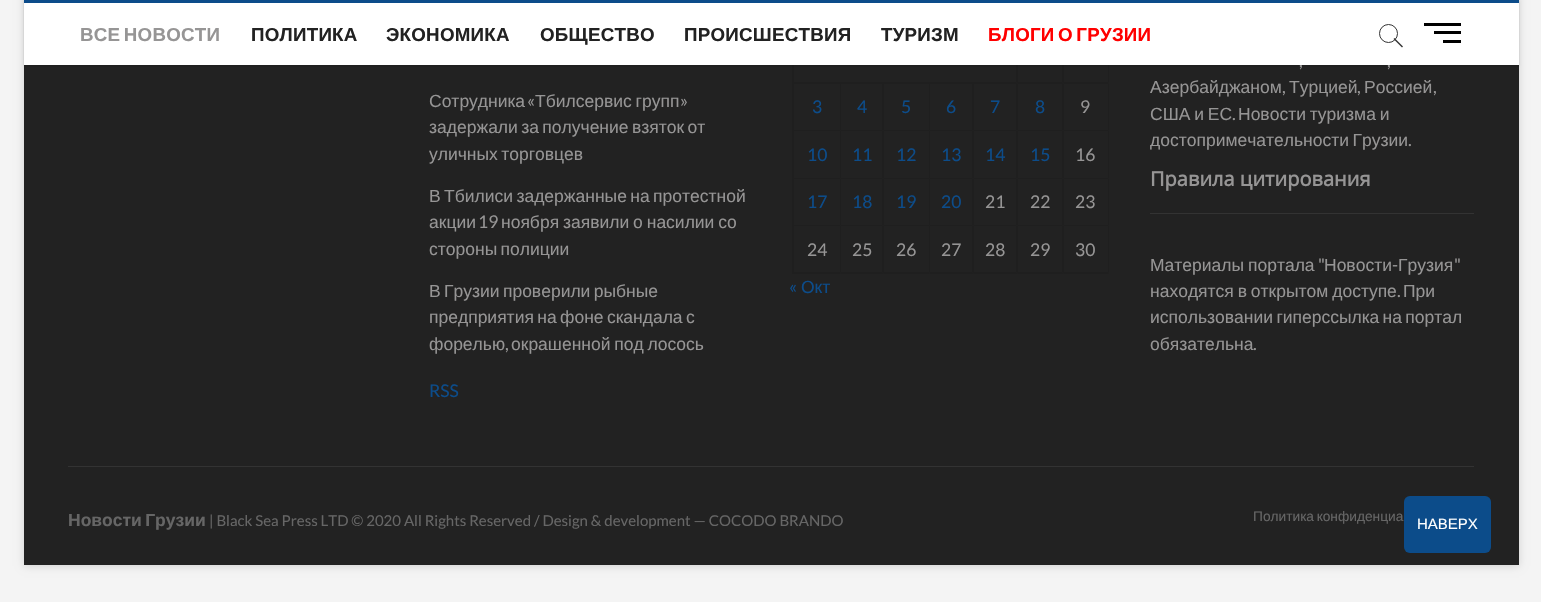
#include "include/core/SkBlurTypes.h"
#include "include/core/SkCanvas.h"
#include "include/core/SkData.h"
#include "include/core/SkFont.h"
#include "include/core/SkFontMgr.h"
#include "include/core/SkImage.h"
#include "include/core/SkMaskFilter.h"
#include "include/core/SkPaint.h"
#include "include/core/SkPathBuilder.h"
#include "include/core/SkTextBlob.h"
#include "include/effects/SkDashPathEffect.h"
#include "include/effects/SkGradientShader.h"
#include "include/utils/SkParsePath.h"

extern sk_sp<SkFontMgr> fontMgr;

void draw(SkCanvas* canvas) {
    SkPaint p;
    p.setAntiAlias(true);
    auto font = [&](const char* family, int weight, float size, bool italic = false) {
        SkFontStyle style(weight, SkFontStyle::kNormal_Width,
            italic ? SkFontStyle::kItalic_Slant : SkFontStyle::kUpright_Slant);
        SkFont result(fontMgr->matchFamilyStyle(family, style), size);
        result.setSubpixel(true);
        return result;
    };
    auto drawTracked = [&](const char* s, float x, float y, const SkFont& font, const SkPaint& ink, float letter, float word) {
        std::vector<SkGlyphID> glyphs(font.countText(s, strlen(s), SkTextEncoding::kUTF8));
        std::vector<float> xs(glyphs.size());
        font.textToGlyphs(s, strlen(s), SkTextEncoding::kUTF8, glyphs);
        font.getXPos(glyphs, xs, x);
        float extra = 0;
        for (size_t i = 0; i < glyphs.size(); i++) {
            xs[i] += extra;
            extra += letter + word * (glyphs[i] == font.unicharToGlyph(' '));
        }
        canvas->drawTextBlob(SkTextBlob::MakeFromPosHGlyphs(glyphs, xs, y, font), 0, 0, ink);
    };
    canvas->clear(0xFFF4F4F4);
    p.setColor(0x26000000);
    p.setMaskFilter(SkMaskFilter::MakeBlur(kNormal_SkBlurStyle, 4));
    canvas->drawRect(SkRect::MakeLTRB(24, -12, 1519, 566), p);
    p.setMaskFilter(nullptr);
    p.setColor(0xFF222222);
    canvas->drawRect(SkRect::MakeLTRB(24, 65, 1519, 565), p);
    p.setColor(0xFF1F1F1F);
    canvas->drawPath(SkPathBuilder().moveTo(792, 274).lineTo(792, -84).lineTo(794, -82).lineTo(794, 274).close().detach(), p);
    canvas->drawPath(SkPathBuilder().moveTo(1018, 36).lineTo(1018, 84).lineTo(1016, 82).lineTo(1016, 36).close().detach(), p);
    canvas->drawPath(SkPathBuilder().moveTo(1064, 36).lineTo(1064, 84).lineTo(1062, 82).lineTo(1062, 36).close().detach(), p);
    canvas->drawPath(SkPathBuilder().moveTo(1109, 36).lineTo(1109, 84).lineTo(1108, 82).lineTo(1108, 36).close().detach(), p);
    p.setColor(0x26000000);
    p.setMaskFilter(SkMaskFilter::MakeBlur(kNormal_SkBlurStyle, 1));
    canvas->drawRect(SkRect::MakeLTRB(24, 1, 1519, 66), p);
    p.setMaskFilter(nullptr);
    auto font1 = font("Lato", 400, 17.5f);
    p.setColor(0xFF969595);
    canvas->drawString(",", 1299, 67, font1, p);
    canvas->drawString(",", 1387, 67, font1, p);
    p.setColor(0xFFFFFFFF);
    canvas->drawRect(SkRect::MakeLTRB(24, 3, 1519, 65), p);
    p.setColor(0xFF0C4C8A);
    canvas->drawRect(SkRect::MakeLTRB(24, 0, 1519, 3), p);
    auto font2 = font("Liberation Sans", 700, 18.75f);
    p.setColor(0xFF969595);
    drawTracked("ВСЕ НОВОСТИ", 80, 41, font2, p, 0.25f, -2);
    p.setColor(0xFF222222);
    {
        const struct { const char* s; float x, y; } items[] = {
            {"ПОЛИТИКА", 251, 41},
            {"ЭКОНОМИКА", 386, 41},
            {"ОБЩЕСТВО", 540, 41},
            {"ПРОИСШЕСТВИЯ", 684, 41},
            {"ТУРИЗМ", 881, 41},
        };
        for (auto [s, x, y] : items) {
            drawTracked(s, x, y, font2, p, 0.25f, 0);
        }
    }
    p.setColor(0xFFFF0000);
    drawTracked("БЛОГИ О ГРУЗИИ", 988, 41, font2, p, 0.25f, -2);
    p.setStyle(SkPaint::kStroke_Style);
    p.setStrokeWidth(1);
    p.setColor(0xFF333333);
    canvas->drawCircle(1388.5f, 33.5f, 9, p);
    p.setStyle(SkPaint::kFill_Style);
    canvas->drawPath(SkPathBuilder().moveTo(1393.5f, 39).lineTo(1394.5f, 38).lineTo(1403, 46.5f).lineTo(1402, 47.5f).close().detach(), p);
    {
        const struct { float l, t, r, b; SkColor color; } items[] = {
            {1434, 31, 1461, 34, 0xFF000000},
            {1424, 23, 1461, 26, 0xFF000000},
            {1443, 40, 1461, 43, 0xFF000000},
        };
        for (auto [l, t, r, b, color] : items) {
            p.setColor(color);
            canvas->drawRect(SkRect::MakeLTRB(l, t, r, b), p);
        }
    }
    auto font3 = font("Liberation Sans", 400, 17.5f);
    p.setColor(0xFF969595);
    canvas->drawString("Сотрудника", 429, 107, font3, p);
    canvas->drawString("«", 527, 107, font1, p);
    drawTracked("Тбилсервис групп", 535, 107, font3, p, 0, -1);
    canvas->drawString("»", 680, 107, font1, p);
    {
        const struct { const char* s; float x, y; } items[] = {
            {"задержали за получение взяток от", 429, 133},
            {"уличных торговцев", 429, 160},
            {"В Тбилиси задержанные на протестной", 429, 202},
        };
        for (auto [s, x, y] : items) {
            drawTracked(s, x, y, font3, p, 0, -1.5f);
        }
    }
    canvas->drawString("акции", 429, 228, font3, p);
    canvas->drawString("19", 478, 228, font1, p);
    drawTracked("ноября заявили о насилии со", 501, 228, font3, p, 0, -1);
    {
        const struct { const char* s; float x, y; } items[] = {
            {"стороны полиции", 429, 255},
            {"В Грузии проверили рыбные", 429, 297},
            {"предприятия на фоне скандала с", 429, 323},
        };
        for (auto [s, x, y] : items) {
            drawTracked(s, x, y, font3, p, 0, -1.5f);
        }
    }
    canvas->drawString("форелью", 429, 350, font3, p);
    canvas->drawString(",", 505, 350, font1, p);
    drawTracked("окрашенной под лосось", 511, 350, font3, p, 0, -1);
    p.setColor(0xFF0C4C8A);
    canvas->drawString("RSS", 429, 397, font1, p);
    p.setColor(0xFF1F1F1F);
    canvas->drawPath(SkPathBuilder().moveTo(1018, 84).lineTo(794, 84).lineTo(794, 82).lineTo(1016, 82).close().detach(), p);
    canvas->drawPath(SkPathBuilder().moveTo(1064, 84).lineTo(1018, 84).lineTo(1018, 82).lineTo(1062, 82).close().detach(), p);
    canvas->drawPath(SkPathBuilder().moveTo(1109, 84).lineTo(1064, 84).lineTo(1064, 82).lineTo(1108, 82).close().detach(), p);
    canvas->drawPath(SkPathBuilder().moveTo(841, 84).lineTo(841, 131).lineTo(840, 130).lineTo(840, 84).close().detach(), p);
    canvas->drawPath(SkPathBuilder().moveTo(841, 131).lineTo(794, 131).lineTo(794, 130).lineTo(840, 130).close().detach(), p);
    p.setColor(0xFF0C4C8A);
    canvas->drawString("3", 812, 113, font1, p);
    p.setColor(0xFF1F1F1F);
    canvas->drawPath(SkPathBuilder().moveTo(884, 84).lineTo(884, 131).lineTo(882, 130).lineTo(882, 84).close().detach(), p);
    canvas->drawPath(SkPathBuilder().moveTo(884, 131).lineTo(841, 131).lineTo(841, 130).lineTo(882, 130).close().detach(), p);
    p.setColor(0xFF0C4C8A);
    canvas->drawString("4", 857, 113, font1, p);
    p.setColor(0xFF1F1F1F);
    canvas->drawPath(SkPathBuilder().moveTo(930, 84).lineTo(930, 131).lineTo(929, 130).lineTo(929, 84).close().detach(), p);
    canvas->drawPath(SkPathBuilder().moveTo(930, 131).lineTo(884, 131).lineTo(884, 130).lineTo(929, 130).close().detach(), p);
    p.setColor(0xFF0C4C8A);
    canvas->drawString("5", 901, 113, font1, p);
    p.setColor(0xFF1F1F1F);
    canvas->drawPath(SkPathBuilder().moveTo(974, 84).lineTo(974, 131).lineTo(972, 130).lineTo(972, 84).close().detach(), p);
    canvas->drawPath(SkPathBuilder().moveTo(974, 131).lineTo(930, 131).lineTo(930, 130).lineTo(972, 130).close().detach(), p);
    p.setColor(0xFF0C4C8A);
    canvas->drawString("6", 946, 113, font1, p);
    p.setColor(0xFF1F1F1F);
    canvas->drawPath(SkPathBuilder().moveTo(1018, 84).lineTo(1018, 131).lineTo(1016, 130).lineTo(1016, 84).close().detach(), p);
    canvas->drawPath(SkPathBuilder().moveTo(1018, 131).lineTo(974, 131).lineTo(974, 130).lineTo(1016, 130).close().detach(), p);
    p.setColor(0xFF0C4C8A);
    canvas->drawString("7", 990, 113, font1, p);
    p.setColor(0xFF1F1F1F);
    canvas->drawPath(SkPathBuilder().moveTo(1064, 84).lineTo(1064, 131).lineTo(1062, 130).lineTo(1062, 84).close().detach(), p);
    canvas->drawPath(SkPathBuilder().moveTo(1064, 131).lineTo(1018, 131).lineTo(1018, 130).lineTo(1062, 130).close().detach(), p);
    p.setColor(0xFF0C4C8A);
    canvas->drawString("8", 1035, 113, font1, p);
    p.setColor(0xFF1F1F1F);
    canvas->drawPath(SkPathBuilder().moveTo(1109, 84).lineTo(1109, 131).lineTo(1108, 130).lineTo(1108, 84).close().detach(), p);
    canvas->drawPath(SkPathBuilder().moveTo(1109, 131).lineTo(1064, 131).lineTo(1064, 130).lineTo(1108, 130).close().detach(), p);
    p.setColor(0xFF969595);
    canvas->drawString("9", 1080, 113, font1, p);
    p.setColor(0xFF1F1F1F);
    canvas->drawPath(SkPathBuilder().moveTo(841, 131).lineTo(841, 179).lineTo(840, 178).lineTo(840, 131).close().detach(), p);
    canvas->drawPath(SkPathBuilder().moveTo(841, 179).lineTo(794, 179).lineTo(794, 178).lineTo(840, 178).close().detach(), p);
    p.setColor(0xFF0C4C8A);
    canvas->drawString("10", 807, 161, font1, p);
    p.setColor(0xFF1F1F1F);
    canvas->drawPath(SkPathBuilder().moveTo(884, 131).lineTo(884, 179).lineTo(882, 178).lineTo(882, 131).close().detach(), p);
    canvas->drawPath(SkPathBuilder().moveTo(884, 179).lineTo(841, 179).lineTo(841, 178).lineTo(882, 178).close().detach(), p);
    p.setColor(0xFF0C4C8A);
    canvas->drawString("11", 852, 161, font1, p);
    p.setColor(0xFF1F1F1F);
    canvas->drawPath(SkPathBuilder().moveTo(930, 131).lineTo(930, 179).lineTo(929, 178).lineTo(929, 131).close().detach(), p);
    canvas->drawPath(SkPathBuilder().moveTo(930, 179).lineTo(884, 179).lineTo(884, 178).lineTo(929, 178).close().detach(), p);
    p.setColor(0xFF0C4C8A);
    canvas->drawString("12", 896, 161, font1, p);
    p.setColor(0xFF1F1F1F);
    canvas->drawPath(SkPathBuilder().moveTo(974, 131).lineTo(974, 179).lineTo(972, 178).lineTo(972, 131).close().detach(), p);
    canvas->drawPath(SkPathBuilder().moveTo(974, 179).lineTo(930, 179).lineTo(930, 178).lineTo(972, 178).close().detach(), p);
    p.setColor(0xFF0C4C8A);
    canvas->drawString("13", 941, 161, font1, p);
    p.setColor(0xFF1F1F1F);
    canvas->drawPath(SkPathBuilder().moveTo(1018, 131).lineTo(1018, 179).lineTo(1016, 178).lineTo(1016, 131).close().detach(), p);
    canvas->drawPath(SkPathBuilder().moveTo(1018, 179).lineTo(974, 179).lineTo(974, 178).lineTo(1016, 178).close().detach(), p);
    p.setColor(0xFF0C4C8A);
    canvas->drawString("14", 985, 161, font1, p);
    p.setColor(0xFF1F1F1F);
    canvas->drawPath(SkPathBuilder().moveTo(1064, 131).lineTo(1064, 179).lineTo(1062, 178).lineTo(1062, 131).close().detach(), p);
    canvas->drawPath(SkPathBuilder().moveTo(1064, 179).lineTo(1018, 179).lineTo(1018, 178).lineTo(1062, 178).close().detach(), p);
    p.setColor(0xFF0C4C8A);
    canvas->drawString("15", 1030, 161, font1, p);
    p.setColor(0xFF1F1F1F);
    canvas->drawPath(SkPathBuilder().moveTo(1109, 131).lineTo(1109, 179).lineTo(1108, 178).lineTo(1108, 131).close().detach(), p);
    canvas->drawPath(SkPathBuilder().moveTo(1109, 179).lineTo(1064, 179).lineTo(1064, 178).lineTo(1108, 178).close().detach(), p);
    p.setColor(0xFF969595);
    canvas->drawString("16", 1075, 161, font1, p);
    p.setColor(0xFF1F1F1F);
    canvas->drawPath(SkPathBuilder().moveTo(841, 179).lineTo(841, 226).lineTo(840, 225).lineTo(840, 179).close().detach(), p);
    canvas->drawPath(SkPathBuilder().moveTo(841, 226).lineTo(794, 226).lineTo(794, 225).lineTo(840, 225).close().detach(), p);
    p.setColor(0xFF0C4C8A);
    canvas->drawString("17", 807, 208, font1, p);
    p.setColor(0xFF1F1F1F);
    canvas->drawPath(SkPathBuilder().moveTo(884, 179).lineTo(884, 226).lineTo(882, 225).lineTo(882, 179).close().detach(), p);
    canvas->drawPath(SkPathBuilder().moveTo(884, 226).lineTo(841, 226).lineTo(841, 225).lineTo(882, 225).close().detach(), p);
    p.setColor(0xFF0C4C8A);
    canvas->drawString("18", 852, 208, font1, p);
    p.setColor(0xFF1F1F1F);
    canvas->drawPath(SkPathBuilder().moveTo(930, 179).lineTo(930, 226).lineTo(929, 225).lineTo(929, 179).close().detach(), p);
    canvas->drawPath(SkPathBuilder().moveTo(930, 226).lineTo(884, 226).lineTo(884, 225).lineTo(929, 225).close().detach(), p);
    p.setColor(0xFF0C4C8A);
    canvas->drawString("19", 896, 208, font1, p);
    p.setColor(0xFF1F1F1F);
    canvas->drawPath(SkPathBuilder().moveTo(974, 179).lineTo(974, 226).lineTo(972, 225).lineTo(972, 179).close().detach(), p);
    canvas->drawPath(SkPathBuilder().moveTo(974, 226).lineTo(930, 226).lineTo(930, 225).lineTo(972, 225).close().detach(), p);
    p.setColor(0xFF0C4C8A);
    canvas->drawString("20", 941, 208, font1, p);
    p.setColor(0xFF1F1F1F);
    canvas->drawPath(SkPathBuilder().moveTo(1018, 179).lineTo(1018, 226).lineTo(1016, 225).lineTo(1016, 179).close().detach(), p);
    canvas->drawPath(SkPathBuilder().moveTo(1018, 226).lineTo(974, 226).lineTo(974, 225).lineTo(1016, 225).close().detach(), p);
    p.setColor(0xFF969595);
    canvas->drawString("21", 985, 208, font1, p);
    p.setColor(0xFF1F1F1F);
    canvas->drawPath(SkPathBuilder().moveTo(1064, 179).lineTo(1064, 226).lineTo(1062, 225).lineTo(1062, 179).close().detach(), p);
    canvas->drawPath(SkPathBuilder().moveTo(1064, 226).lineTo(1018, 226).lineTo(1018, 225).lineTo(1062, 225).close().detach(), p);
    p.setColor(0xFF969595);
    canvas->drawString("22", 1030, 208, font1, p);
    p.setColor(0xFF1F1F1F);
    canvas->drawPath(SkPathBuilder().moveTo(1109, 179).lineTo(1109, 226).lineTo(1108, 225).lineTo(1108, 179).close().detach(), p);
    canvas->drawPath(SkPathBuilder().moveTo(1109, 226).lineTo(1064, 226).lineTo(1064, 225).lineTo(1108, 225).close().detach(), p);
    p.setColor(0xFF969595);
    canvas->drawString("23", 1075, 208, font1, p);
    p.setColor(0xFF1F1F1F);
    canvas->drawPath(SkPathBuilder().moveTo(841, 226).lineTo(841, 274).lineTo(840, 272).lineTo(840, 226).close().detach(), p);
    canvas->drawPath(SkPathBuilder().moveTo(841, 274).lineTo(794, 274).lineTo(794, 272).lineTo(840, 272).close().detach(), p);
    p.setColor(0xFF969595);
    canvas->drawString("24", 807, 256, font1, p);
    p.setColor(0xFF1F1F1F);
    canvas->drawPath(SkPathBuilder().moveTo(884, 226).lineTo(884, 274).lineTo(882, 272).lineTo(882, 226).close().detach(), p);
    canvas->drawPath(SkPathBuilder().moveTo(884, 274).lineTo(841, 274).lineTo(841, 272).lineTo(882, 272).close().detach(), p);
    p.setColor(0xFF969595);
    canvas->drawString("25", 852, 256, font1, p);
    p.setColor(0xFF1F1F1F);
    canvas->drawPath(SkPathBuilder().moveTo(930, 226).lineTo(930, 274).lineTo(929, 272).lineTo(929, 226).close().detach(), p);
    canvas->drawPath(SkPathBuilder().moveTo(930, 274).lineTo(884, 274).lineTo(884, 272).lineTo(929, 272).close().detach(), p);
    p.setColor(0xFF969595);
    canvas->drawString("26", 896, 256, font1, p);
    p.setColor(0xFF1F1F1F);
    canvas->drawPath(SkPathBuilder().moveTo(974, 226).lineTo(974, 274).lineTo(972, 272).lineTo(972, 226).close().detach(), p);
    canvas->drawPath(SkPathBuilder().moveTo(974, 274).lineTo(930, 274).lineTo(930, 272).lineTo(972, 272).close().detach(), p);
    p.setColor(0xFF969595);
    canvas->drawString("27", 941, 256, font1, p);
    p.setColor(0xFF1F1F1F);
    canvas->drawPath(SkPathBuilder().moveTo(1018, 226).lineTo(1018, 274).lineTo(1016, 272).lineTo(1016, 226).close().detach(), p);
    canvas->drawPath(SkPathBuilder().moveTo(1018, 274).lineTo(974, 274).lineTo(974, 272).lineTo(1016, 272).close().detach(), p);
    p.setColor(0xFF969595);
    canvas->drawString("28", 985, 256, font1, p);
    p.setColor(0xFF1F1F1F);
    canvas->drawPath(SkPathBuilder().moveTo(1064, 226).lineTo(1064, 274).lineTo(1062, 272).lineTo(1062, 226).close().detach(), p);
    canvas->drawPath(SkPathBuilder().moveTo(1064, 274).lineTo(1018, 274).lineTo(1018, 272).lineTo(1062, 272).close().detach(), p);
    p.setColor(0xFF969595);
    canvas->drawString("29", 1030, 256, font1, p);
    p.setColor(0xFF1F1F1F);
    canvas->drawPath(SkPathBuilder().moveTo(1109, 226).lineTo(1109, 274).lineTo(1108, 272).lineTo(1108, 226).close().detach(), p);
    canvas->drawPath(SkPathBuilder().moveTo(1109, 274).lineTo(1064, 274).lineTo(1064, 272).lineTo(1108, 272).close().detach(), p);
    p.setColor(0xFF969595);
    canvas->drawString("30", 1075, 256, font1, p);
    p.setColor(0xFF0C4C8A);
    canvas->drawString("«", 789, 293, font1, p);
    canvas->drawString("Окт", 801, 293, font3, p);
    p.setColor(0xFF969595);
    canvas->drawString("Азербайджаном", 1150, 93, font3, p);
    canvas->drawString(",", 1282, 93, font1, p);
    canvas->drawString("Турцией", 1289, 93, font3, p);
    canvas->drawString(",", 1357, 93, font1, p);
    canvas->drawString("Россией", 1364, 93, font3, p);
    canvas->drawString(",", 1433, 93, font1, p);
    drawTracked("США и ЕС", 1150, 120, font3, p, 0, -1);
    canvas->drawString(".", 1232, 120, font1, p);
    drawTracked("Новости туризма и", 1238, 120, font3, p, 0, -1);
    drawTracked("достопримечательности Грузии", 1150, 146, font3, p, 0, -1.5f);
    canvas->drawString(".", 1408, 146, font1, p);
    p.setColor(0xFF333333);
    canvas->drawRect(SkRect::MakeLTRB(1150, 213, 1474, 214), p);
    auto font4 = font("Open Sans", 700, 20);
    p.setColor(0xFF969595);
    canvas->drawString("Правила цитирования", 1150, 186, font4, p);
    drawTracked("Материалы портала", 1150, 271, font3, p, 0, -1);
    canvas->drawString("\"", 1318, 271, font1, p);
    canvas->drawString("Новости", 1324, 271, font3, p);
    canvas->drawString("Грузия", 1398, 271, font3, p);
    canvas->drawString("\"", 1454, 271, font1, p);
    canvas->drawString("-", 1392, 271, font1, p);
    drawTracked("находятся в открытом доступе", 1150, 297, font3, p, 0, -1);
    canvas->drawString(".", 1397, 297, font1, p);
    canvas->drawString("При", 1403, 297, font3, p);
    drawTracked("использовании гиперссылка на портал", 1150, 323, font3, p, 0, -1.5f);
    canvas->drawString("обязательна", 1150, 350, font3, p);
    canvas->drawString(".", 1253, 350, font1, p);
    p.setColor(0xFF333333);
    canvas->drawRect(SkRect::MakeLTRB(68, 466, 1474, 467), p);
    auto font5 = font("Liberation Sans", 700, 17.5f);
    p.setColor(0xFF666666);
    drawTracked("Новости Грузии", 68, 526, font5, p, 0, -1.5f);
    auto font6 = font("Lato", 400, 15);
    canvas->drawString("| Black Sea Press LTD © 2020 All Rights Reserved / Design & development — COCODO BRANDO", 209, 526, font6, p);
    auto font7 = font("Liberation Sans", 400, 13.75f);
    drawTracked("Политика конфиденциа", 1253, 521, font7, p, 0, -1);
    p.setColor(0xFF0C4C8A);
    canvas->drawRoundRect(SkRect::MakeLTRB(1404, 496, 1491, 553), 6, 6, p);
    auto font8 = font("Liberation Sans", 400, 15);
    p.setColor(0xFFFFFFFF);
    canvas->drawString("НАВЕРХ", 1417, 529, font8, p);
}
